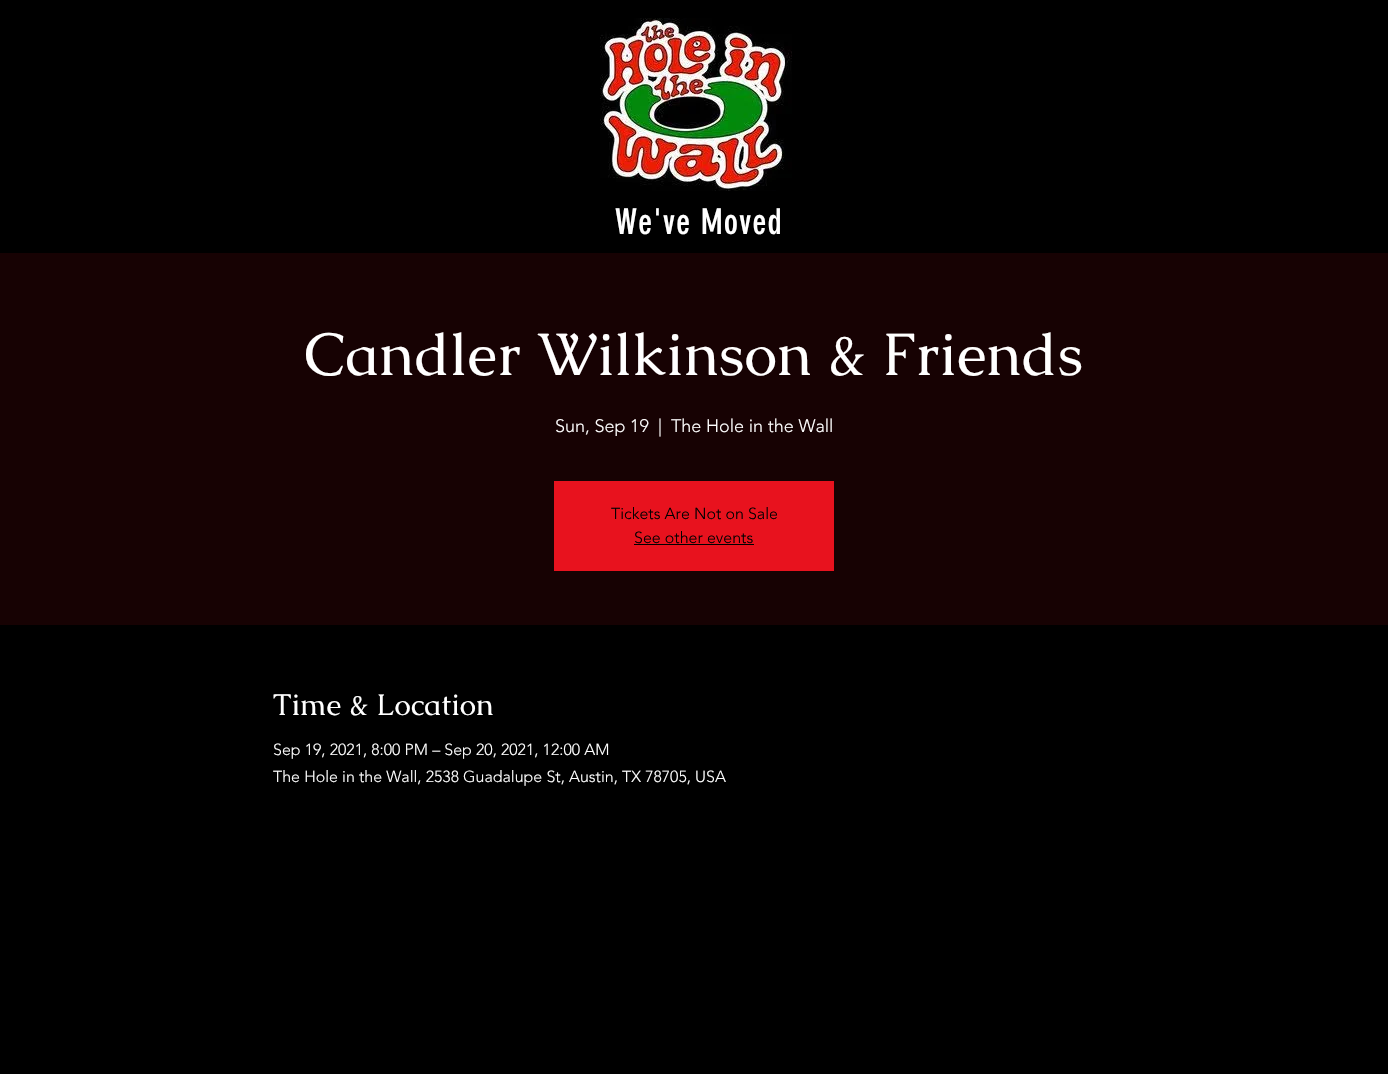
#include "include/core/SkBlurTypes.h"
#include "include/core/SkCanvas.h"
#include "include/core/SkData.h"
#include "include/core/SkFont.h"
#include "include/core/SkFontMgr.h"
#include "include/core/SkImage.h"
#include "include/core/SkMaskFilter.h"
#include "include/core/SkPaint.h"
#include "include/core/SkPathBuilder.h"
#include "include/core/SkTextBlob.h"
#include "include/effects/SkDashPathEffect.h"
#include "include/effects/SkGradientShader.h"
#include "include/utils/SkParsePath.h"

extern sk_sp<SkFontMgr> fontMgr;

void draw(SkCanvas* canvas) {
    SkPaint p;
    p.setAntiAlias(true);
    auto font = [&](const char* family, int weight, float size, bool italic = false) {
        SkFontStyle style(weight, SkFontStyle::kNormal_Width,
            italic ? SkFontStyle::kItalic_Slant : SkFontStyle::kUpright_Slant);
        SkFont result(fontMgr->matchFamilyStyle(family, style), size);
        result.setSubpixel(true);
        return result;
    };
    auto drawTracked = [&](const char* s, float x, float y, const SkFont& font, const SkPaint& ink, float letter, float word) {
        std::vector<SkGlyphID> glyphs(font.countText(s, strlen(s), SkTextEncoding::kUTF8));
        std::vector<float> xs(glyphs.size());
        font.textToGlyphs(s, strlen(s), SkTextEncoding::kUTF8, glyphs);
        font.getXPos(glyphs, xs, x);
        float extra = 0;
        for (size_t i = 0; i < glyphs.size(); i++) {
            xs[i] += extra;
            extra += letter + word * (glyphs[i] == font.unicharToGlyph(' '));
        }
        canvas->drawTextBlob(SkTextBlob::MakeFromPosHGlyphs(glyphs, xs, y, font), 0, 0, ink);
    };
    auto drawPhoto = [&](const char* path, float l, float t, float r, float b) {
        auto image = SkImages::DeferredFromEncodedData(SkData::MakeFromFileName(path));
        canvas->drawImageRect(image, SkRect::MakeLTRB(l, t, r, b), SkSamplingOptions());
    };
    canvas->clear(0xFF000000);
    drawPhoto("media/1.png", 600, 18, 792, 191);
    auto font1 = font("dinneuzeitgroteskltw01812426", 400, 35);
    p.setColor(0xFFFFFFFF);
    drawTracked("We've Moved", 615, 234, font1, p, 1, 0);
    p.setColor(0xFF170203);
    canvas->drawRect(SkRect::MakeLTRB(0, 253, 1388, 625), p);
    auto font2 = font("Caudex", 400, 60);
    p.setColor(0xFFFFFFFF);
    canvas->drawString("Candler Wilkinson & Friends", 304, 375, font2, p);
    auto font3 = font("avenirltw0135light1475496", 300, 18);
    {
        const struct { const char* s; float x, y; } items[] = {
            {"Sun, Sep 19", 555, 432},
            {"|", 658, 432},
            {"The Hole in the Wall", 671, 432},
        };
        for (auto [s, x, y] : items) {
            canvas->drawString(s, x, y, font3, p);
        }
    }
    p.setColor(0xFFE8121E);
    canvas->drawRect(SkRect::MakeLTRB(554, 481, 834, 571), p);
    auto font4 = font("avenirltw0135light1475496", 300, 16);
    p.setColor(0xFF000000);
    canvas->drawString("Tickets Are Not on Sale", 611, 519, font4, p);
    canvas->drawString("See other events", 634, 543, font4, p);
    canvas->drawRect(SkRect::MakeLTRB(634, 544, 754, 545), p);
    auto font5 = font("Caudex", 400, 30);
    p.setColor(0xFFFFFFFF);
    canvas->drawString("Time & Location", 273, 715, font5, p);
    canvas->drawString("Sep 19, 2021, 8:00 PM – Sep 20, 2021, 12:00 AM", 273, 755, font4, p);
    canvas->drawString("The Hole in the Wall, 2538 Guadalupe St, Austin, TX 78705, USA", 273, 782, font4, p);
}
